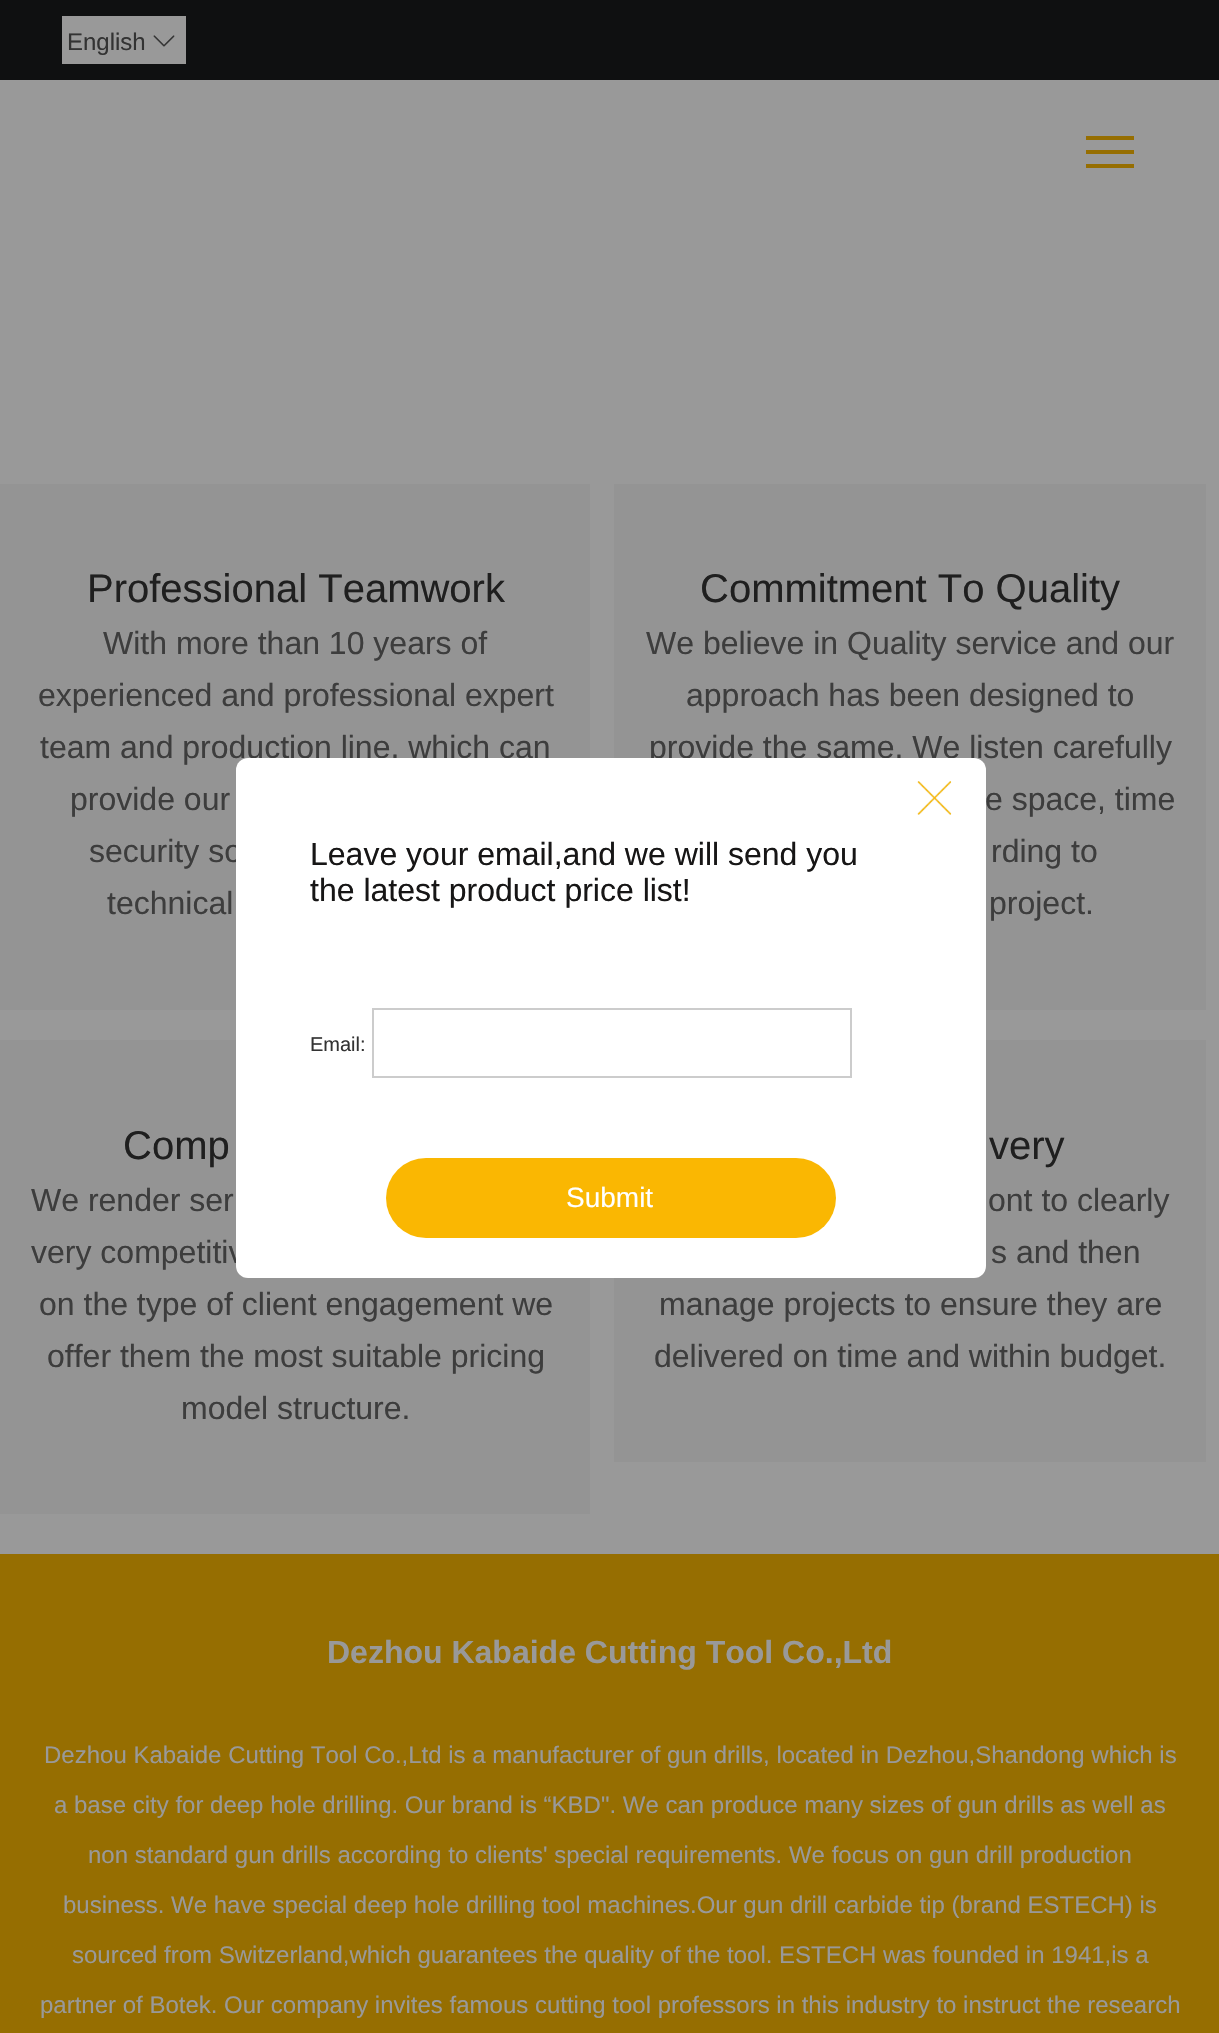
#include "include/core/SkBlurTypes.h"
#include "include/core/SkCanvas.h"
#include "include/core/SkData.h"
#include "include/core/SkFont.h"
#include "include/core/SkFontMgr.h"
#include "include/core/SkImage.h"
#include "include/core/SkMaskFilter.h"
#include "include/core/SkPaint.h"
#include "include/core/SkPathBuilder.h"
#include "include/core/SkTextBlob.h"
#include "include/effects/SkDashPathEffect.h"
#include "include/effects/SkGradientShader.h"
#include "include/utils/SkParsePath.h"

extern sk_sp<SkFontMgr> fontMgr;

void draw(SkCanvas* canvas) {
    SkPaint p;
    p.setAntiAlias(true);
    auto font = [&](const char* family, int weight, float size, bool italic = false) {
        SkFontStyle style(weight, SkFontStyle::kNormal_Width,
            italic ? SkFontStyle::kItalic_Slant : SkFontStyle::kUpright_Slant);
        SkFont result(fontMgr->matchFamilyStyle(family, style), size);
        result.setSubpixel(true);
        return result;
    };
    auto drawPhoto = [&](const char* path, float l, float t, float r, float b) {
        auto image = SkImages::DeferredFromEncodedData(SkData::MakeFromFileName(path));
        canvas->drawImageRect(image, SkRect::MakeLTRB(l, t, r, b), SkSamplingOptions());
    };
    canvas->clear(0xFF999999);
    p.setColor(0xFF0F1011);
    canvas->drawRect(SkRect::MakeLTRB(0, 0, 1219, 80), p);
    p.setColor(0xFF999999);
    canvas->drawRect(SkRect::MakeLTRB(62, 16, 186, 64), p);
    auto font1 = font("Liberation Sans", 400, 24);
    p.setColor(0xFF333333);
    canvas->drawString("English", 67, 50, font1, p);
    drawPhoto("media/1.png", 153, 35, 175, 47);
    {
        const struct { float l, t, r, b; SkColor color; } items[] = {
            {1086, 150, 1134, 154, 0xFF966E01},
            {1086, 136, 1134, 140, 0xFF966E01},
            {1086, 164, 1134, 168, 0xFF966E01},
            {0, 484, 590, 1010, 0xFF949494},
        };
        for (auto [l, t, r, b, color] : items) {
            p.setColor(color);
            canvas->drawRect(SkRect::MakeLTRB(l, t, r, b), p);
        }
    }
    auto font2 = font("Liberation Sans", 400, 40);
    p.setColor(0xFF1F1F1F);
    canvas->drawString("Professional Teamwork", 87, 602, font2, p);
    auto font3 = font("Liberation Sans", 400, 32);
    p.setColor(0xFF3D3D3D);
    {
        const struct { const char* s; float x, y; } items[] = {
            {"With more than 10 years of", 103, 654},
            {"experienced and professional expert", 38, 706},
            {"team and production line, which can", 40, 758},
            {"provide our", 70, 810},
            {"security so", 89, 862},
            {"technical", 107, 914},
        };
        for (auto [s, x, y] : items) {
            canvas->drawString(s, x, y, font3, p);
        }
    }
    p.setColor(0xFF949494);
    canvas->drawRect(SkRect::MakeLTRB(614, 484, 1206, 1010), p);
    p.setColor(0xFF1F1F1F);
    canvas->drawString("Commitment To Quality", 700, 602, font2, p);
    p.setColor(0xFF3D3D3D);
    {
        const struct { const char* s; float x, y; } items[] = {
            {"We believe in Quality service and our", 646, 654},
            {"approach has been designed to", 686, 706},
            {"provide the same. We listen carefully", 649, 758},
            {"e space, time", 985, 810},
            {"rding to", 991, 862},
            {"project.", 989, 914},
        };
        for (auto [s, x, y] : items) {
            canvas->drawString(s, x, y, font3, p);
        }
    }
    p.setColor(0xFF949494);
    canvas->drawRect(SkRect::MakeLTRB(0, 1040, 590, 1514), p);
    p.setColor(0xFF1F1F1F);
    canvas->drawString("Comp", 123, 1159, font2, p);
    p.setColor(0xFF3D3D3D);
    {
        const struct { const char* s; float x, y; } items[] = {
            {"We render ser", 31, 1211},
            {"very competitiv", 31, 1263},
            {"on the type of client engagement we", 39, 1315},
            {"offer them the most suitable pricing", 47, 1367},
            {"model structure.", 181, 1419},
        };
        for (auto [s, x, y] : items) {
            canvas->drawString(s, x, y, font3, p);
        }
    }
    p.setColor(0xFF949494);
    canvas->drawRect(SkRect::MakeLTRB(614, 1040, 1206, 1462), p);
    p.setColor(0xFF1F1F1F);
    canvas->drawString("very", 989, 1159, font2, p);
    p.setColor(0xFF3D3D3D);
    {
        const struct { const char* s; float x, y; } items[] = {
            {"ont to clearly", 988, 1211},
            {"s and then", 991, 1263},
            {"manage projects to ensure they are", 659, 1315},
            {"delivered on time and within budget.", 654, 1367},
        };
        for (auto [s, x, y] : items) {
            canvas->drawString(s, x, y, font3, p);
        }
    }
    p.setColor(0xFF966E01);
    canvas->drawRect(SkRect::MakeLTRB(0, 1554, 1219, 2033), p);
    auto font4 = font("Liberation Sans", 700, 32);
    p.setColor(0xFF999999);
    canvas->drawString("Dezhou Kabaide Cutting Tool Co.,Ltd", 327, 1663, font4, p);
    {
        const struct { const char* s; float x, y; } items[] = {
            {"Dezhou Kabaide Cutting Tool Co.,Ltd is a manufacturer of gun drills, located in Dezhou,Shandong which is", 44, 1763},
            {"a base city for deep hole drilling. Our brand is “KBD\". We can produce many sizes of gun drills as well as", 54, 1813},
            {"non standard gun drills according to clients' special requirements. We focus on gun drill production", 88, 1863},
            {"business. We have special deep hole drilling tool machines.Our gun drill carbide tip (brand ESTECH) is", 63, 1913},
            {"sourced from Switzerland,which guarantees the quality of the tool. ESTECH was founded in 1941,is a", 72, 1963},
            {"partner of Botek. Our company invites famous cutting tool professors in this industry to instruct the research", 40, 2013},
        };
        for (auto [s, x, y] : items) {
            canvas->drawString(s, x, y, font1, p);
        }
    }
    p.setColor(0xFFFFFFFF);
    canvas->drawRoundRect(SkRect::MakeLTRB(236, 758, 986, 1278), 12, 12, p);
    drawPhoto("media/2.png", 917, 781, 952, 815);
    p.setColor(0xFF171616);
    canvas->drawString("Leave your email,and we will send you", 310, 865, font3, p);
    canvas->drawString("the latest product price list!", 310, 901, font3, p);
    auto font5 = font("Liberation Sans", 400, 20);
    p.setColor(0xFF333333);
    canvas->drawString("Email:", 310, 1051, font5, p);
    p.setStyle(SkPaint::kStroke_Style);
    p.setStrokeWidth(2);
    p.setColor(0xFFCCCCCC);
    canvas->drawRect(SkRect::MakeLTRB(373, 1009, 851, 1077), p);
    p.setStyle(SkPaint::kFill_Style);
    p.setColor(0xFFFAB702);
    canvas->drawRoundRect(SkRect::MakeLTRB(386, 1158, 836, 1238), 40, 40, p);
    auto font6 = font("Liberation Sans", 400, 28);
    p.setColor(0xFFFFFFFF);
    canvas->drawString("Submit", 566, 1207, font6, p);
}
